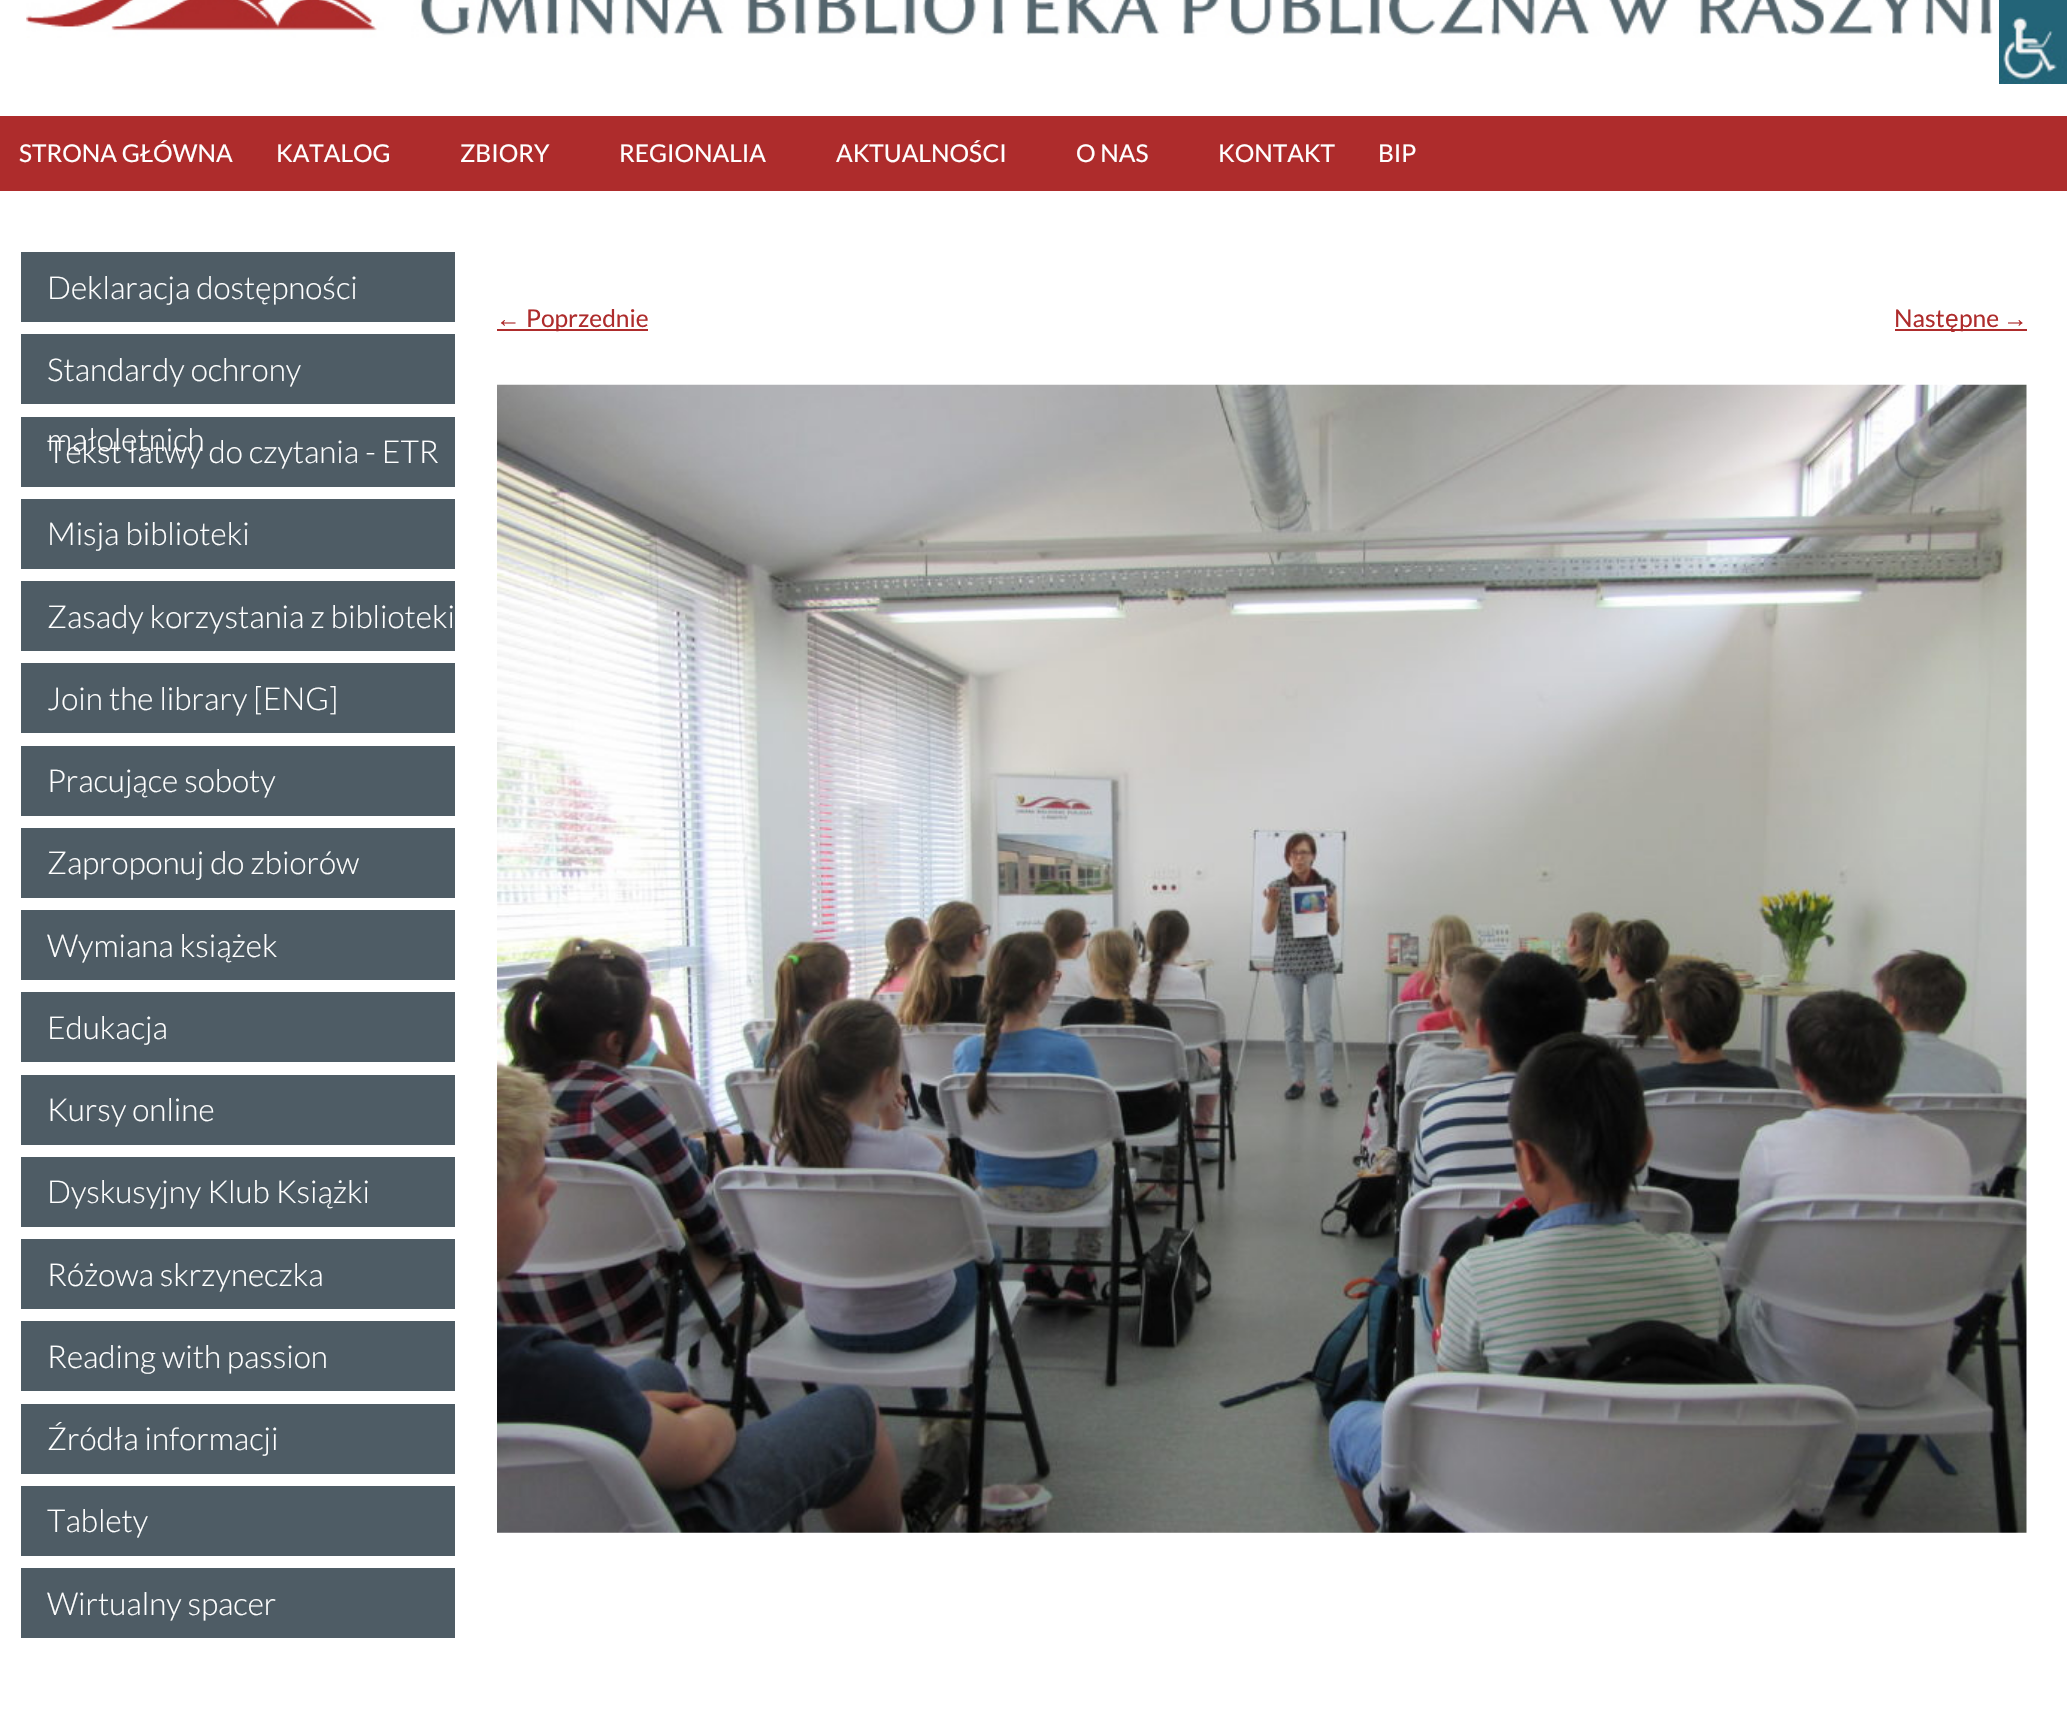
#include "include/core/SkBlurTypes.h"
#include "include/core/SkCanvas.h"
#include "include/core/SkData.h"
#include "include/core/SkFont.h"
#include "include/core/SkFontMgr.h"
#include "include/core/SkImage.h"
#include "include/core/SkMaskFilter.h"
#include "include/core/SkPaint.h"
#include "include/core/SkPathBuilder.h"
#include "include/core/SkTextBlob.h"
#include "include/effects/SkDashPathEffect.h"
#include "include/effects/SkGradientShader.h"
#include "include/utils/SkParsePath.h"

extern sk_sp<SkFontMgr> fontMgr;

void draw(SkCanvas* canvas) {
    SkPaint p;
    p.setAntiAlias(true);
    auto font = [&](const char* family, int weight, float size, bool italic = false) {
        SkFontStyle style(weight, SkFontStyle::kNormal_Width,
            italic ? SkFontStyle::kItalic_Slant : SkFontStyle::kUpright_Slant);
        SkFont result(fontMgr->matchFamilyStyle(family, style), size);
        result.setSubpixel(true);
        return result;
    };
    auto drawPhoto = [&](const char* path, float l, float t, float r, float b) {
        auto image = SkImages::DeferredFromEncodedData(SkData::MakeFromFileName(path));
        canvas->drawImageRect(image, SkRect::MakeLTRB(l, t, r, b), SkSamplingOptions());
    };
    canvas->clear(0xFFFFFFFF);
    drawPhoto("media/1.png", 1999, 0, 2067, 84);
    drawPhoto("media/2.png", 26, 0, 1999, 38);
    p.setColor(0xFFAE2C2C);
    canvas->drawRect(SkRect::MakeLTRB(0, 116, 2067, 191), p);
    auto font1 = font("Lato", 400, 24.5f);
    p.setColor(0xFFFFFFFF);
    {
        const struct { const char* s; float x, y; } items[] = {
            {"STRONA GŁÓWNA", 19, 162},
            {"KATALOG", 276, 162},
            {"ZBIORY", 460, 162},
            {"REGIONALIA", 619, 162},
            {"AKTUALNOŚCI", 836, 162},
            {"O NAS", 1076, 162},
            {"KONTAKT", 1218, 162},
            {"BIP", 1378, 162},
        };
        for (auto [s, x, y] : items) {
            canvas->drawString(s, x, y, font1, p);
        }
    }
    p.setColor(0xFF4E5C65);
    canvas->drawRect(SkRect::MakeLTRB(21, 252, 455, 322), p);
    auto font2 = font("Lato", 300, 31.5f);
    p.setColor(0xFFFFFFFF);
    canvas->drawString("Deklaracja dostępności", 47, 299, font2, p);
    p.setColor(0xFF4E5C65);
    canvas->drawRect(SkRect::MakeLTRB(21, 334, 455, 404), p);
    p.setColor(0xFFFFFFFF);
    canvas->drawString("Standardy ochrony", 47, 381, font2, p);
    p.setColor(0xFF4E5C65);
    canvas->drawRect(SkRect::MakeLTRB(21, 417, 455, 487), p);
    p.setColor(0xFFFFFFFF);
    canvas->drawString("małoletnich", 47, 451, font2, p);
    canvas->drawString("Tekst łatwy do czytania - ETR", 47, 463, font2, p);
    p.setColor(0xFF4E5C65);
    canvas->drawRect(SkRect::MakeLTRB(21, 499, 455, 569), p);
    p.setColor(0xFFFFFFFF);
    canvas->drawString("Misja biblioteki", 47, 545, font2, p);
    p.setColor(0xFF4E5C65);
    canvas->drawRect(SkRect::MakeLTRB(21, 581, 455, 651), p);
    p.setColor(0xFFFFFFFF);
    canvas->drawString("Zasady korzystania z biblioteki", 47, 628, font2, p);
    p.setColor(0xFF4E5C65);
    canvas->drawRect(SkRect::MakeLTRB(21, 663, 455, 733), p);
    p.setColor(0xFFFFFFFF);
    canvas->drawString("Join the library [ENG]", 47, 710, font2, p);
    p.setColor(0xFF4E5C65);
    canvas->drawRect(SkRect::MakeLTRB(21, 746, 455, 816), p);
    p.setColor(0xFFFFFFFF);
    canvas->drawString("Pracujące soboty", 47, 792, font2, p);
    p.setColor(0xFF4E5C65);
    canvas->drawRect(SkRect::MakeLTRB(21, 828, 455, 898), p);
    p.setColor(0xFFFFFFFF);
    canvas->drawString("Zaproponuj do zbiorów", 47, 874, font2, p);
    p.setColor(0xFF4E5C65);
    canvas->drawRect(SkRect::MakeLTRB(21, 910, 455, 980), p);
    p.setColor(0xFFFFFFFF);
    canvas->drawString("Wymiana książek", 47, 957, font2, p);
    p.setColor(0xFF4E5C65);
    canvas->drawRect(SkRect::MakeLTRB(21, 992, 455, 1062), p);
    p.setColor(0xFFFFFFFF);
    canvas->drawString("Edukacja", 47, 1039, font2, p);
    p.setColor(0xFF4E5C65);
    canvas->drawRect(SkRect::MakeLTRB(21, 1075, 455, 1145), p);
    p.setColor(0xFFFFFFFF);
    canvas->drawString("Kursy online", 47, 1121, font2, p);
    p.setColor(0xFF4E5C65);
    canvas->drawRect(SkRect::MakeLTRB(21, 1157, 455, 1227), p);
    p.setColor(0xFFFFFFFF);
    canvas->drawString("Dyskusyjny Klub Książki", 47, 1203, font2, p);
    p.setColor(0xFF4E5C65);
    canvas->drawRect(SkRect::MakeLTRB(21, 1239, 455, 1309), p);
    p.setColor(0xFFFFFFFF);
    canvas->drawString("Różowa skrzyneczka", 47, 1286, font2, p);
    p.setColor(0xFF4E5C65);
    canvas->drawRect(SkRect::MakeLTRB(21, 1321, 455, 1391), p);
    p.setColor(0xFFFFFFFF);
    canvas->drawString("Reading with passion", 47, 1368, font2, p);
    p.setColor(0xFF4E5C65);
    canvas->drawRect(SkRect::MakeLTRB(21, 1404, 455, 1474), p);
    p.setColor(0xFFFFFFFF);
    canvas->drawString("Źródła informacji", 47, 1450, font2, p);
    p.setColor(0xFF4E5C65);
    canvas->drawRect(SkRect::MakeLTRB(21, 1486, 455, 1556), p);
    p.setColor(0xFFFFFFFF);
    canvas->drawString("Tablety", 47, 1532, font2, p);
    p.setColor(0xFF4E5C65);
    canvas->drawRect(SkRect::MakeLTRB(21, 1568, 455, 1638), p);
    p.setColor(0xFFFFFFFF);
    canvas->drawString("Wirtualny spacer", 47, 1615, font2, p);
    auto font3 = font("Liberation Sans", 400, 24.5f);
    p.setColor(0xFFAE2C2C);
    canvas->drawString("←", 496, 327, font3, p);
    canvas->drawRect(SkRect::MakeLTRB(497, 329, 648, 331), p);
    canvas->drawString("Poprzednie", 526, 327, font1, p);
    canvas->drawString("Nast", 1894, 327, font1, p);
    canvas->drawRect(SkRect::MakeLTRB(1895, 329, 2027, 331), p);
    canvas->drawString("ę", 1945, 327, font3, p);
    canvas->drawString("pne", 1959, 327, font1, p);
    canvas->drawString("→", 2003, 327, font3, p);
    drawPhoto("media/3.png", 497, 384, 2027, 1533);
}
